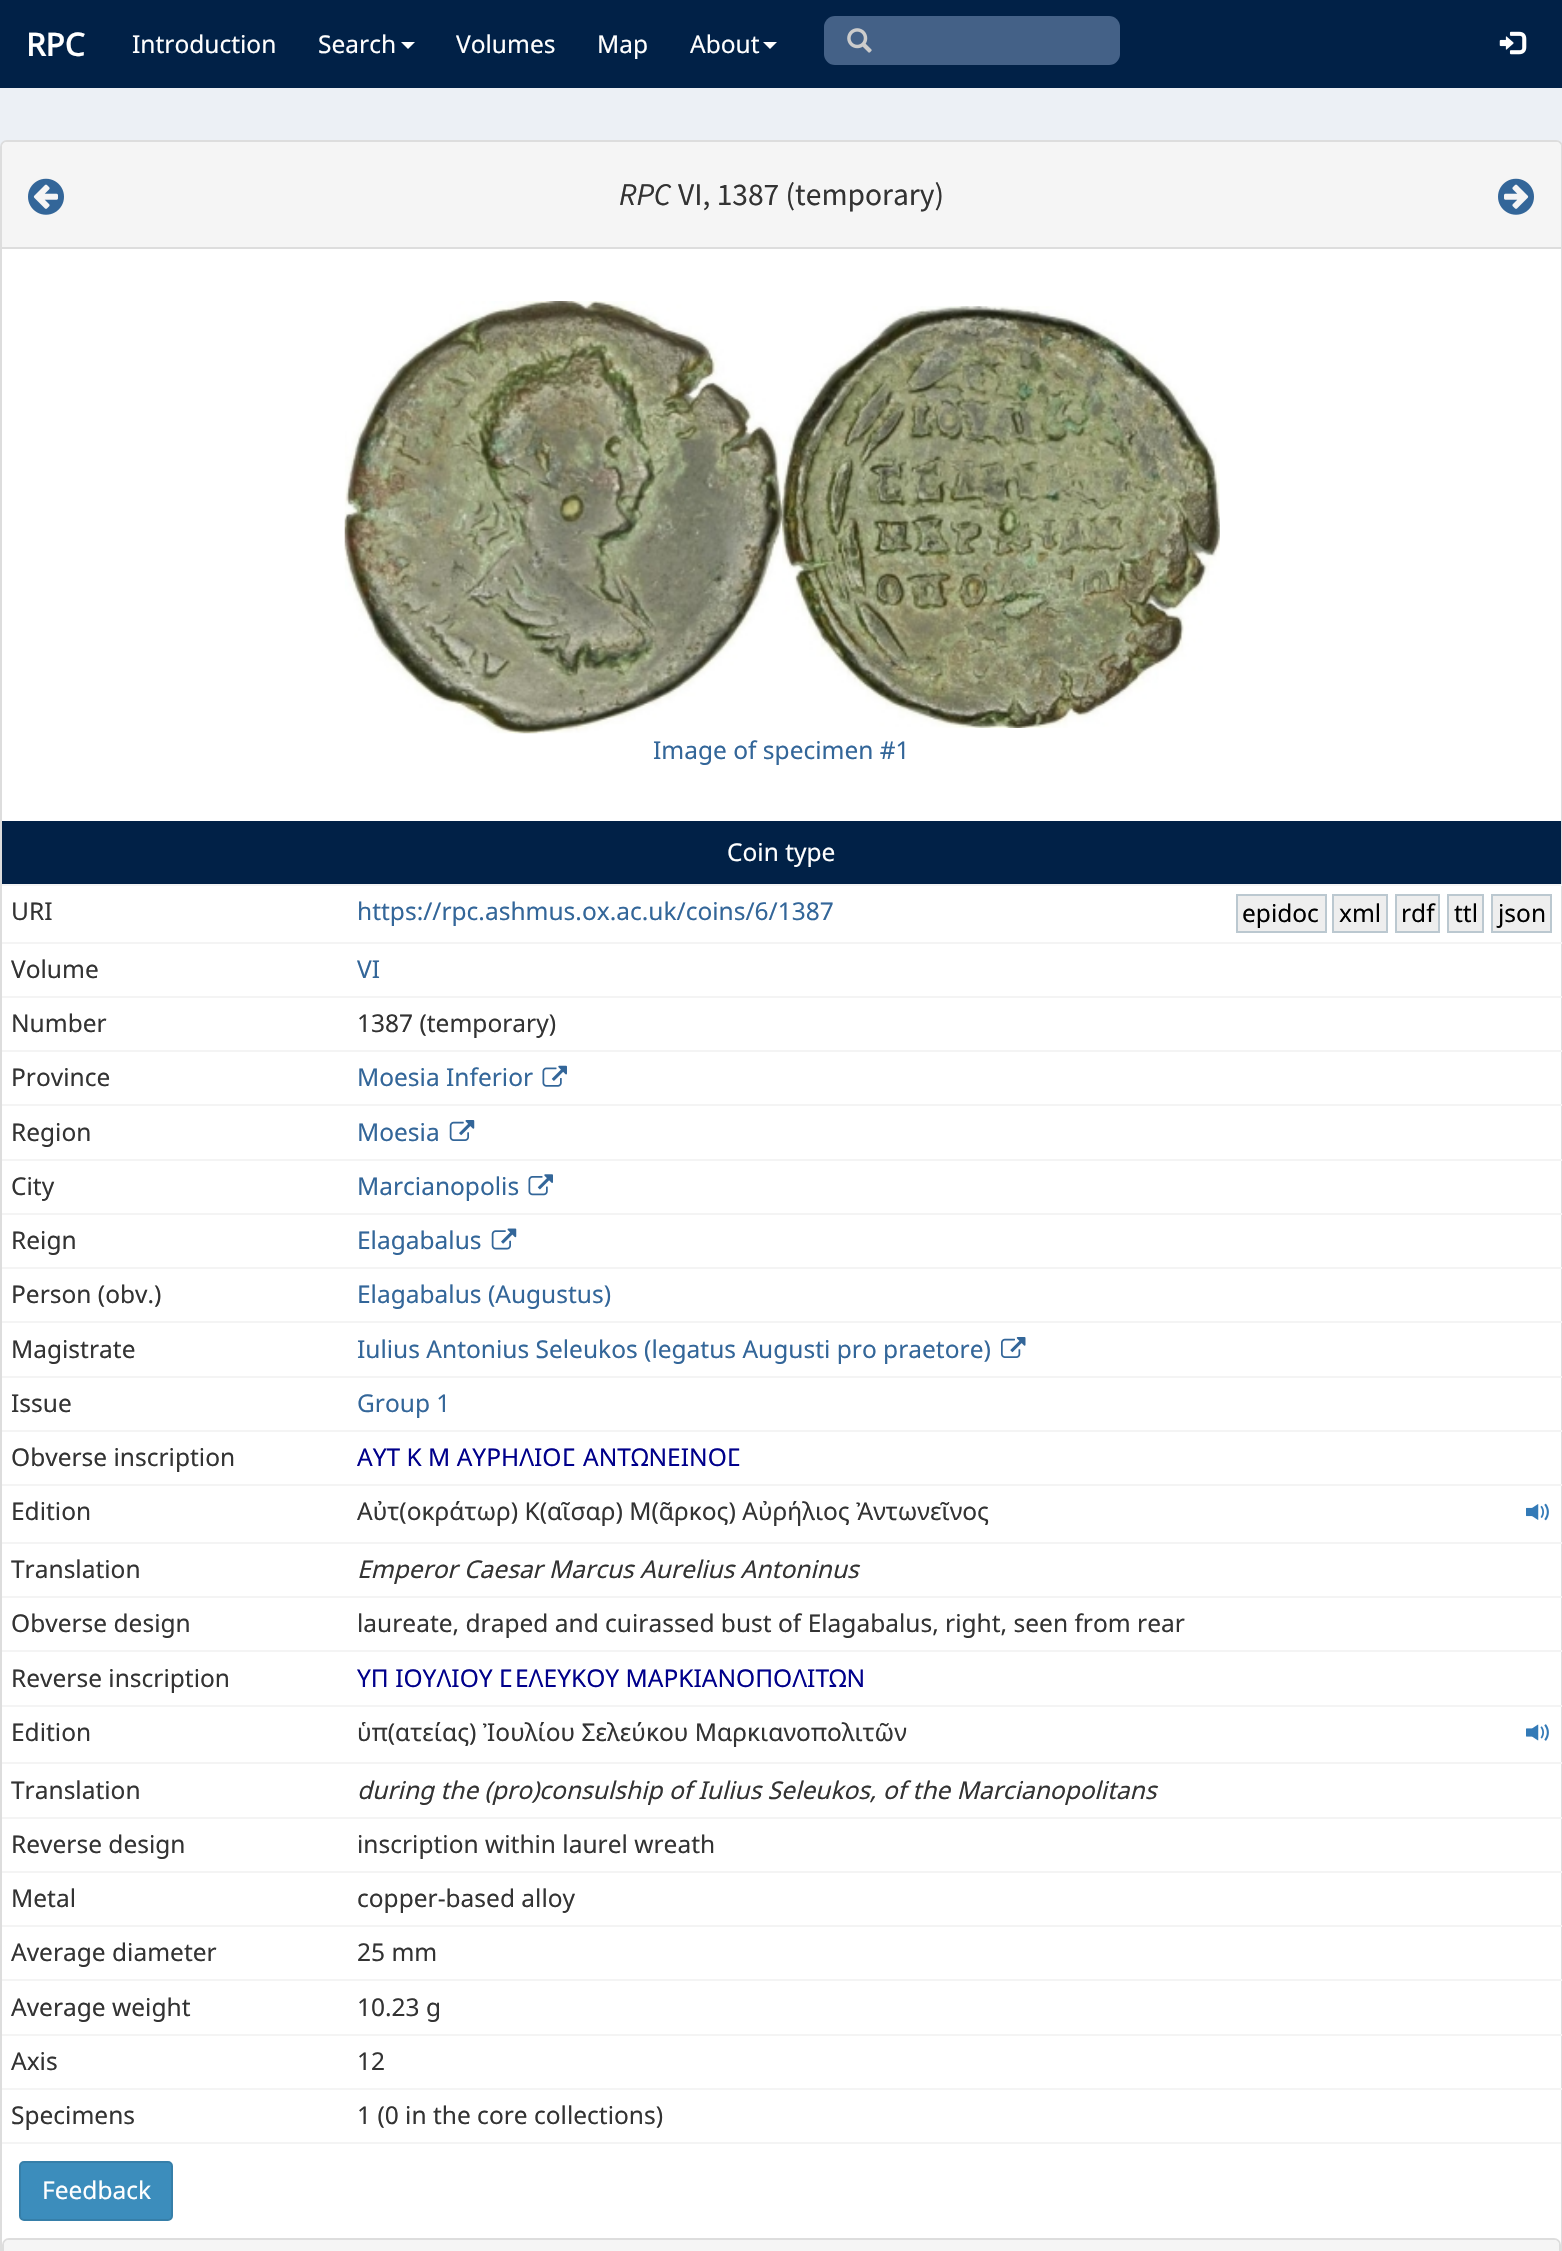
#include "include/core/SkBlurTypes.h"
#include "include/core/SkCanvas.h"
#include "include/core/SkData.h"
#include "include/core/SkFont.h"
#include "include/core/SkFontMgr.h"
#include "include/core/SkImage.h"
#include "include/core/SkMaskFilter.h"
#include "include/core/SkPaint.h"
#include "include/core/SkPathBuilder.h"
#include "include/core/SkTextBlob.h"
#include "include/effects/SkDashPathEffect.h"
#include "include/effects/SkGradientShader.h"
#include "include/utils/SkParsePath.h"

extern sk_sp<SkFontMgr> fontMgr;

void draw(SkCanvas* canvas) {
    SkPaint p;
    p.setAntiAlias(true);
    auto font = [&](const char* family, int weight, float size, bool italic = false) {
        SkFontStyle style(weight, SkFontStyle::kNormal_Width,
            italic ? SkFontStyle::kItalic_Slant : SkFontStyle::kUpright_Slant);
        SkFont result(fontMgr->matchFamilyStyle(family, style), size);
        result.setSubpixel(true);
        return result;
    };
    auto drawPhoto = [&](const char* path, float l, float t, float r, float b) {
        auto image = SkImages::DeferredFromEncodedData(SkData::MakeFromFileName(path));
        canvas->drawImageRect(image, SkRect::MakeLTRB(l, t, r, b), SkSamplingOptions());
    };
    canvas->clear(0xFFECF0F5);
    p.setColor(0xFF012147);
    canvas->drawRect(SkRect::MakeLTRB(0, 0, 1562, 88), p);
    auto font1 = font("Noto Sans", 700, 31.5f);
    p.setColor(0xFFFFFFFF);
    canvas->drawString("RPC", 26, 56, font1, p);
    auto font2 = font("Noto Sans", 400, 24.5f);
    canvas->drawString("Introduction", 132, 53, font2, p);
    canvas->drawString("Search", 318, 53, font2, p);
    canvas->drawPath(SkPathBuilder().moveTo(401, 42).lineTo(415, 42).lineTo(408, 49).close().detach(), p);
    {
        const struct { const char* s; float x, y; } items[] = {
            {"Volumes", 456, 53},
            {"Map", 597, 53},
            {"About", 690, 53},
        };
        for (auto [s, x, y] : items) {
            canvas->drawString(s, x, y, font2, p);
        }
    }
    canvas->drawPath(SkPathBuilder().moveTo(763, 42).lineTo(777, 42).lineTo(770, 49).close().detach(), p);
    p.setColor(0xFF446187);
    canvas->drawRoundRect(SkRect::MakeLTRB(824, 16, 1120, 65), 11, 11, p);
    drawPhoto("media/1.png", 847, 28, 872, 53);
    drawPhoto("media/2.png", 1499, 31, 1527, 55);
    p.setColor(0xFFFFFFFF);
    canvas->drawRoundRect(SkRect::MakeLTRB(1, 141, 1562, 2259), 6, 6, p);
    p.setStyle(SkPaint::kStroke_Style);
    p.setStrokeWidth(2);
    p.setColor(0xFFDDDDDD);
    canvas->drawRoundRect(SkRect::MakeLTRB(1, 141, 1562, 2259), 6, 6, p);
    p.setStyle(SkPaint::kFill_Style);
    p.setColor(0xFFF5F5F5);
    canvas->drawPath(SkPathBuilder().moveTo(7, 142).lineTo(1556, 142).cubicTo(1559, 142, 1561, 144, 1561, 147).lineTo(1561, 249).lineTo(2, 249).lineTo(2, 147).cubicTo(2, 144, 4, 142, 7, 142).close().detach(), p);
    p.setColor(0xFFDDDDDD);
    canvas->drawRect(SkRect::MakeLTRB(2, 247, 1561, 249), p);
    drawPhoto("media/3.png", 28, 178, 64, 215);
    auto font3 = font("Source Sans Pro", 400, 31.5f, true);
    p.setColor(0xFF333333);
    canvas->drawString("RPC", 619, 205, font3, p);
    auto font4 = font("Source Sans Pro", 400, 31.5f);
    canvas->drawString("VI, 1387 (temporary)", 678, 205, font4, p);
    drawPhoto("media/4.png", 1498, 178, 1534, 215);
    drawPhoto("media/5.png", 344, 301, 783, 734);
    drawPhoto("media/6.png", 782, 306, 1220, 728);
    p.setColor(0xFF336699);
    canvas->drawString("Image of specimen #1", 653, 759, font2, p);
    p.setColor(0xFF012147);
    canvas->drawRect(SkRect::MakeLTRB(2, 821, 1561, 884), p);
    p.setColor(0xFFFFFFFF);
    canvas->drawString("Coin type", 727, 861, font2, p);
    p.setColor(0xFF333333);
    canvas->drawString("URI", 11, 920, font2, p);
    p.setColor(0xFFF4F4F4);
    canvas->drawRect(SkRect::MakeLTRB(2, 884, 1562, 886), p);
    p.setColor(0xFF336699);
    canvas->drawString("https://rpc.ashmus.ox.ac.uk/coins/6/1387", 357, 920, font2, p);
    p.setColor(0xFFEEEEEE);
    canvas->drawRect(SkRect::MakeLTRB(1237, 895, 1326, 932), p);
    p.setStyle(SkPaint::kStroke_Style);
    p.setColor(0xFFBBC8D0);
    canvas->drawRect(SkRect::MakeLTRB(1237, 895, 1326, 932), p);
    p.setStyle(SkPaint::kFill_Style);
    p.setColor(0xFF000000);
    canvas->drawString("epidoc", 1242, 922, font2, p);
    p.setColor(0xFFEEEEEE);
    canvas->drawRect(SkRect::MakeLTRB(1333, 895, 1387, 932), p);
    p.setStyle(SkPaint::kStroke_Style);
    p.setColor(0xFFBBC8D0);
    canvas->drawRect(SkRect::MakeLTRB(1333, 895, 1387, 932), p);
    p.setStyle(SkPaint::kFill_Style);
    p.setColor(0xFF000000);
    canvas->drawString("xml", 1339, 922, font2, p);
    p.setColor(0xFFEEEEEE);
    canvas->drawRect(SkRect::MakeLTRB(1396, 895, 1439, 932), p);
    p.setStyle(SkPaint::kStroke_Style);
    p.setColor(0xFFBBC8D0);
    canvas->drawRect(SkRect::MakeLTRB(1396, 895, 1439, 932), p);
    p.setStyle(SkPaint::kFill_Style);
    p.setColor(0xFF000000);
    canvas->drawString("rdf", 1401, 922, font2, p);
    p.setColor(0xFFEEEEEE);
    canvas->drawRect(SkRect::MakeLTRB(1448, 895, 1483, 932), p);
    p.setStyle(SkPaint::kStroke_Style);
    p.setColor(0xFFBBC8D0);
    canvas->drawRect(SkRect::MakeLTRB(1448, 895, 1483, 932), p);
    p.setStyle(SkPaint::kFill_Style);
    p.setColor(0xFF000000);
    canvas->drawString("ttl", 1454, 922, font2, p);
    p.setColor(0xFFEEEEEE);
    canvas->drawRect(SkRect::MakeLTRB(1492, 895, 1551, 932), p);
    p.setStyle(SkPaint::kStroke_Style);
    p.setColor(0xFFBBC8D0);
    canvas->drawRect(SkRect::MakeLTRB(1492, 895, 1551, 932), p);
    p.setStyle(SkPaint::kFill_Style);
    p.setColor(0xFF000000);
    canvas->drawString("json", 1498, 922, font2, p);
    p.setColor(0xFF333333);
    canvas->drawString("Volume", 11, 978, font2, p);
    p.setColor(0xFFF4F4F4);
    canvas->drawRect(SkRect::MakeLTRB(2, 942, 1562, 944), p);
    p.setColor(0xFF336699);
    canvas->drawString("VI", 357, 978, font2, p);
    p.setColor(0xFF333333);
    canvas->drawString("Number", 11, 1032, font2, p);
    p.setColor(0xFFF4F4F4);
    canvas->drawRect(SkRect::MakeLTRB(2, 996, 1562, 998), p);
    p.setColor(0xFF333333);
    canvas->drawString("1387 (temporary)", 357, 1032, font2, p);
    canvas->drawString("Province", 11, 1086, font2, p);
    p.setColor(0xFFF4F4F4);
    canvas->drawRect(SkRect::MakeLTRB(2, 1050, 1562, 1052), p);
    p.setColor(0xFF336699);
    canvas->drawString("Moesia Inferior", 357, 1086, font2, p);
    drawPhoto("media/7.png", 542, 1065, 567, 1087);
    p.setColor(0xFF333333);
    canvas->drawString("Region", 11, 1141, font2, p);
    p.setColor(0xFFF4F4F4);
    canvas->drawRect(SkRect::MakeLTRB(2, 1104, 1562, 1106), p);
    p.setColor(0xFF336699);
    canvas->drawString("Moesia", 357, 1141, font2, p);
    drawPhoto("media/8.png", 449, 1120, 475, 1141);
    p.setColor(0xFF333333);
    canvas->drawString("City", 11, 1195, font2, p);
    p.setColor(0xFFF4F4F4);
    canvas->drawRect(SkRect::MakeLTRB(2, 1159, 1562, 1161), p);
    p.setColor(0xFF336699);
    canvas->drawString("Marcianopolis", 357, 1195, font2, p);
    drawPhoto("media/9.png", 528, 1174, 553, 1196);
    p.setColor(0xFF333333);
    canvas->drawString("Reign", 11, 1249, font2, p);
    p.setColor(0xFFF4F4F4);
    canvas->drawRect(SkRect::MakeLTRB(2, 1213, 1562, 1215), p);
    p.setColor(0xFF336699);
    canvas->drawString("Elagabalus", 357, 1249, font2, p);
    drawPhoto("media/10.png", 491, 1228, 517, 1250);
    p.setColor(0xFF333333);
    canvas->drawString("Person (obv.)", 11, 1303, font2, p);
    p.setColor(0xFFF4F4F4);
    canvas->drawRect(SkRect::MakeLTRB(2, 1267, 1562, 1269), p);
    p.setColor(0xFF336699);
    canvas->drawString("Elagabalus (Augustus)", 357, 1303, font2, p);
    p.setColor(0xFF333333);
    canvas->drawString("Magistrate", 11, 1358, font2, p);
    p.setColor(0xFFF4F4F4);
    canvas->drawRect(SkRect::MakeLTRB(2, 1321, 1562, 1323), p);
    p.setColor(0xFF336699);
    canvas->drawString("Iulius Antonius Seleukos (legatus Augusti pro praetore)", 357, 1358, font2, p);
    drawPhoto("media/11.png", 1001, 1337, 1026, 1358);
    p.setColor(0xFF333333);
    canvas->drawString("Issue", 11, 1412, font2, p);
    p.setColor(0xFFF4F4F4);
    canvas->drawRect(SkRect::MakeLTRB(2, 1376, 1562, 1378), p);
    p.setColor(0xFF336699);
    canvas->drawString("Group 1", 357, 1412, font2, p);
    p.setColor(0xFF333333);
    canvas->drawString("Obverse inscription", 11, 1466, font2, p);
    p.setColor(0xFFF4F4F4);
    canvas->drawRect(SkRect::MakeLTRB(2, 1430, 1562, 1432), p);
    p.setColor(0xFF00008B);
    canvas->drawString("ΑΥΤ Κ Μ ΑΥΡΗΛΙΟ", 357, 1466, font2, p);
    auto font5 = font("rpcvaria", 400, 24.5f);
    canvas->drawString("Ϲ", 562, 1466, font5, p);
    canvas->drawString("ΑΝΤΩΝΕΙΝΟ", 583, 1466, font2, p);
    canvas->drawString("Ϲ", 727, 1466, font5, p);
    p.setColor(0xFF333333);
    canvas->drawString("Edition", 11, 1520, font2, p);
    p.setColor(0xFFF4F4F4);
    canvas->drawRect(SkRect::MakeLTRB(2, 1484, 1562, 1486), p);
    p.setColor(0xFF333333);
    canvas->drawString("Αὐτ(οκράτωρ) Κ(αῖσαρ) Μ(ᾶρκος) Αὐρήλιος Ἀντωνεῖνος", 357, 1520, font2, p);
    drawPhoto("media/12.png", 1526, 1503, 1549, 1521);
    canvas->drawString("Translation", 11, 1578, font2, p);
    p.setColor(0xFFF4F4F4);
    canvas->drawRect(SkRect::MakeLTRB(2, 1542, 1562, 1544), p);
    auto font6 = font("Noto Sans", 400, 24.5f, true);
    p.setColor(0xFF333333);
    canvas->drawString("Emperor Caesar Marcus Aurelius Antoninus", 357, 1578, font6, p);
    canvas->drawString("Obverse design", 11, 1632, font2, p);
    p.setColor(0xFFF4F4F4);
    canvas->drawRect(SkRect::MakeLTRB(2, 1596, 1562, 1598), p);
    p.setColor(0xFF333333);
    canvas->drawString("laureate, draped and cuirassed bust of Elagabalus, right, seen from rear", 357, 1632, font2, p);
    canvas->drawString("Reverse inscription", 11, 1687, font2, p);
    p.setColor(0xFFF4F4F4);
    canvas->drawRect(SkRect::MakeLTRB(2, 1650, 1562, 1652), p);
    p.setColor(0xFF00008B);
    canvas->drawString("ΥΠ ΙΟΥΛΙΟΥ", 357, 1687, font2, p);
    canvas->drawString("Ϲ", 499, 1687, font5, p);
    canvas->drawString("ΕΛΕΥΚΟΥ ΜΑΡΚΙΑΝΟΠΟΛΙΤΩΝ", 515, 1687, font2, p);
    p.setColor(0xFF333333);
    canvas->drawString("Edition", 11, 1741, font2, p);
    p.setColor(0xFFF4F4F4);
    canvas->drawRect(SkRect::MakeLTRB(2, 1705, 1562, 1707), p);
    p.setColor(0xFF333333);
    canvas->drawString("ὑπ(ατείας) Ἰουλίου Σελεύκου Μαρκιανοπολιτῶν", 357, 1741, font2, p);
    drawPhoto("media/13.png", 1526, 1724, 1549, 1741);
    canvas->drawString("Translation", 11, 1799, font2, p);
    p.setColor(0xFFF4F4F4);
    canvas->drawRect(SkRect::MakeLTRB(2, 1762, 1562, 1764), p);
    p.setColor(0xFF333333);
    canvas->drawString("during the (pro)consulship of Iulius Seleukos, of the Marcianopolitans", 357, 1799, font6, p);
    canvas->drawString("Reverse design", 11, 1853, font2, p);
    p.setColor(0xFFF4F4F4);
    canvas->drawRect(SkRect::MakeLTRB(2, 1817, 1562, 1819), p);
    p.setColor(0xFF333333);
    canvas->drawString("inscription within laurel wreath", 357, 1853, font2, p);
    canvas->drawString("Metal", 11, 1907, font2, p);
    p.setColor(0xFFF4F4F4);
    canvas->drawRect(SkRect::MakeLTRB(2, 1871, 1562, 1873), p);
    p.setColor(0xFF333333);
    canvas->drawString("copper-based alloy", 357, 1907, font2, p);
    canvas->drawString("Average diameter", 11, 1961, font2, p);
    p.setColor(0xFFF4F4F4);
    canvas->drawRect(SkRect::MakeLTRB(2, 1925, 1562, 1927), p);
    p.setColor(0xFF333333);
    canvas->drawString("25 mm", 357, 1961, font2, p);
    canvas->drawString("Average weight", 11, 2016, font2, p);
    p.setColor(0xFFF4F4F4);
    canvas->drawRect(SkRect::MakeLTRB(2, 1979, 1562, 1981), p);
    p.setColor(0xFF333333);
    canvas->drawString("10.23 g", 357, 2016, font2, p);
    canvas->drawString("Axis", 11, 2070, font2, p);
    p.setColor(0xFFF4F4F4);
    canvas->drawRect(SkRect::MakeLTRB(2, 2034, 1562, 2036), p);
    p.setColor(0xFF333333);
    canvas->drawString("12", 357, 2070, font2, p);
    canvas->drawString("Specimens", 11, 2124, font2, p);
    p.setColor(0xFFF4F4F4);
    canvas->drawRect(SkRect::MakeLTRB(2, 2088, 1562, 2090), p);
    p.setColor(0xFF333333);
    canvas->drawString("1 (0 in the core collections)", 357, 2124, font2, p);
    p.setColor(0xFFF4F4F4);
    canvas->drawRect(SkRect::MakeLTRB(2, 2142, 1561, 2144), p);
    p.setColor(0xFF3C8DBC);
    canvas->drawRoundRect(SkRect::MakeLTRB(20, 2162, 172, 2220), 4, 4, p);
    p.setStyle(SkPaint::kStroke_Style);
    p.setColor(0xFF367FA9);
    canvas->drawRoundRect(SkRect::MakeLTRB(20, 2162, 172, 2220), 4, 4, p);
    p.setStyle(SkPaint::kFill_Style);
    p.setColor(0xFFFFFFFF);
    canvas->drawString("Feedback", 42, 2199, font2, p);
    p.setStyle(SkPaint::kStroke_Style);
    p.setColor(0xFFDDDDDD);
    canvas->drawRoundRect(SkRect::MakeLTRB(3, 2239, 1560, 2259), 6, 6, p);
    p.setStyle(SkPaint::kFill_Style);
    p.setColor(0xFFF5F5F5);
    canvas->drawPath(SkPathBuilder().moveTo(9, 2240).lineTo(1554, 2240).cubicTo(1557, 2240, 1559, 2242, 1559, 2245).lineTo(1559, 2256).lineTo(4, 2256).lineTo(4, 2245).cubicTo(4, 2242, 6, 2240, 9, 2240).close().detach(), p);
}
